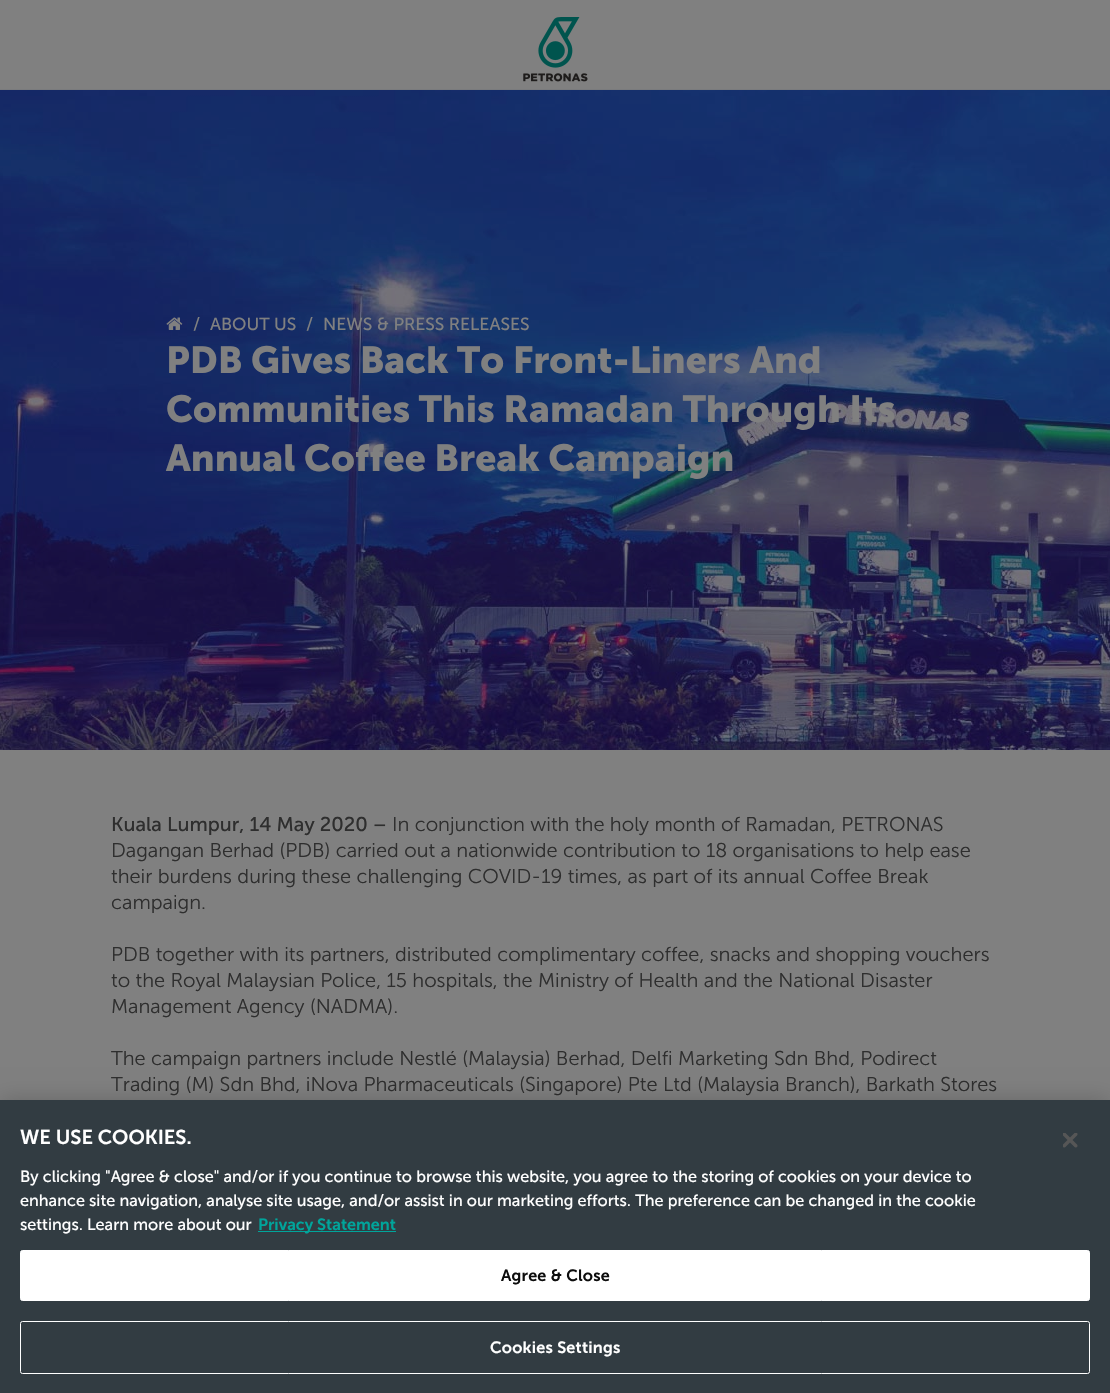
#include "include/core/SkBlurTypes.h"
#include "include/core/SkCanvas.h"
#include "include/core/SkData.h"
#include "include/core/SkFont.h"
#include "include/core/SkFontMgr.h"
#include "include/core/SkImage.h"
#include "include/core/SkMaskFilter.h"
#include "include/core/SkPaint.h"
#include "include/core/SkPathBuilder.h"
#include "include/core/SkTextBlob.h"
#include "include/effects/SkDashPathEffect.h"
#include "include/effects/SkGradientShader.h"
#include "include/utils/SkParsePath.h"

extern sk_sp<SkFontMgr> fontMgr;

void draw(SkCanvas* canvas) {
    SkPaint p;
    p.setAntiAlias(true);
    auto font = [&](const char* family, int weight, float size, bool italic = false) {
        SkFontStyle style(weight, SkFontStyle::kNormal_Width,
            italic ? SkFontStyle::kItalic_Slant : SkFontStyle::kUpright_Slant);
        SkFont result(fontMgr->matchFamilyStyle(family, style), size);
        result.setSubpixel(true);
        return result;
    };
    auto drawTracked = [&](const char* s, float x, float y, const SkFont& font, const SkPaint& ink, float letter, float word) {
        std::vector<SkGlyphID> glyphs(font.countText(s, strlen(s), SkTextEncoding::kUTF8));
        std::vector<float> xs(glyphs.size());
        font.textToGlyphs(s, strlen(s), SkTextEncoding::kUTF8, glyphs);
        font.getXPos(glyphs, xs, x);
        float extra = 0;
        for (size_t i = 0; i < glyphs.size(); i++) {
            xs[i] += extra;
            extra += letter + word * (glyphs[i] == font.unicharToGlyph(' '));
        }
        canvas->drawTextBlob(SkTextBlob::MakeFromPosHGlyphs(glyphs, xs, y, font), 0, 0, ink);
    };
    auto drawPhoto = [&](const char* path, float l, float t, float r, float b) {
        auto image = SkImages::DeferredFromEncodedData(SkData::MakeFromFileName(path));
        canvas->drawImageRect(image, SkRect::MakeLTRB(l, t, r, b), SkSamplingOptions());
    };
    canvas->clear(0xFF808080);
    p.setColor(0xFF7A7B7D);
    canvas->drawRect(SkRect::MakeLTRB(0, 89, 1110, 90), p);
    drawPhoto("media/1.png", 523, 17, 588, 82);
    drawPhoto("media/2.png", 0, 90, 1110, 750);
    drawPhoto("media/3.png", 166, 317, 183, 330);
    auto font1 = font("Museo Sans", 400, 17.5f);
    p.setColor(0xFF808080);
    {
        const struct { const char* s; float x, y; } items[] = {
            {"/", 193, 330},
            {"ABOUT US", 210, 330},
            {"/", 306, 330},
            {"NEWS & PRESS RELEASES", 323, 330},
        };
        for (auto [s, x, y] : items) {
            canvas->drawString(s, x, y, font1, p);
        }
    }
    auto font2 = font("Museo Sans", 700, 37.5f);
    {
        const struct { const char* s; float x, y; } items[] = {
            {"PDB Gives Back To Front-Liners And", 166, 373},
            {"Communities This Ramadan Through Its", 166, 422},
            {"Annual Coffee Break Campaign", 166, 471},
        };
        for (auto [s, x, y] : items) {
            canvas->drawString(s, x, y, font2, p);
        }
    }
    auto font3 = font("Museo Sans", 400, 20);
    p.setColor(0xFF2E2E2E);
    canvas->drawString("Kuala Lumpur, 14 May 2020 –", 111, 831, font3, p);
    auto font4 = font("Museo Sans", 300, 20);
    {
        const struct { const char* s; float x, y; } items[] = {
            {"In conjunction with the holy month of Ramadan, PETRONAS", 392, 831},
            {"Dagangan Berhad (PDB) carried out a nationwide contribution to 18 organisations to help ease", 111, 857},
            {"their burdens during these challenging COVID-19 times, as part of its annual Coffee Break", 111, 883},
            {"campaign.", 111, 909},
            {"PDB together with its partners, distributed complimentary coffee, snacks and shopping vouchers", 111, 961},
            {"to the Royal Malaysian Police, 15 hospitals, the Ministry of Health and the National Disaster", 111, 987},
            {"Management Agency (NADMA).", 111, 1013},
            {"The campaign partners include Nestlé (Malaysia) Berhad, Delfi Marketing Sdn Bhd, Podirect", 111, 1065},
            {"Trading (M) Sdn Bhd, iNova Pharmaceuticals (Singapore) Pte Ltd (Malaysia Branch), Barkath Stores", 111, 1091},
        };
        for (auto [s, x, y] : items) {
            canvas->drawString(s, x, y, font4, p);
        }
    }
    p.setColor(0x33000000);
    p.setMaskFilter(SkMaskFilter::MakeBlur(kNormal_SkBlurStyle, 11));
    canvas->drawRect(SkRect::MakeLTRB(0, 1100, 1110, 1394), p);
    p.setMaskFilter(nullptr);
    p.setColor(0xFF323C42);
    canvas->drawRect(SkRect::MakeLTRB(0, 1100, 1110, 1393), p);
    auto font5 = font("Museo Sans", 600, 20);
    p.setColor(0xFFFFFFFF);
    canvas->drawString("WE USE COOKIES.", 20, 1144, font5, p);
    auto font6 = font("Museo Sans", 400, 16.25f);
    {
        const struct { const char* s; float x, y; } items[] = {
            {"By clicking \"Agree & close\" and/or if you continue to browse this website, you agree to the storing of cookies on your device to", 20, 1182},
            {"enhance site navigation, analyse site usage, and/or assist in our marketing efforts. The preference can be changed in the cookie", 20, 1206},
            {"settings. Learn more about our", 20, 1230},
        };
        for (auto [s, x, y] : items) {
            canvas->drawString(s, x, y, font6, p);
        }
    }
    p.setColor(0xFF00A59B);
    canvas->drawRect(SkRect::MakeLTRB(258, 1231, 396, 1232), p);
    auto font7 = font("Museo Sans", 600, 16.25f);
    canvas->drawString("Privacy Statement", 258, 1230, font7, p);
    p.setColor(0xFFFFFFFF);
    canvas->drawRoundRect(SkRect::MakeLTRB(20.5f, 1250.5f, 1089.5f, 1300.5f), 2, 2, p);
    p.setStyle(SkPaint::kStroke_Style);
    p.setStrokeWidth(1);
    canvas->drawRoundRect(SkRect::MakeLTRB(20.5f, 1250.5f, 1089.5f, 1300.5f), 2, 2, p);
    p.setStyle(SkPaint::kFill_Style);
    p.setColor(0xFF0D0D0D);
    drawTracked("Agree & Close", 501, 1281, font7, p, 0.2f, 0);
    p.setStyle(SkPaint::kStroke_Style);
    p.setColor(0xFFFFFFFF);
    canvas->drawRoundRect(SkRect::MakeLTRB(20.5f, 1321.5f, 1089.5f, 1373.5f), 2, 2, p);
    p.setStyle(SkPaint::kFill_Style);
    drawTracked("Cookies Settings", 490, 1353, font7, p, 0.2f, 0);
    drawPhoto("media/4.png", 1063, 1133, 1078, 1148);
}
